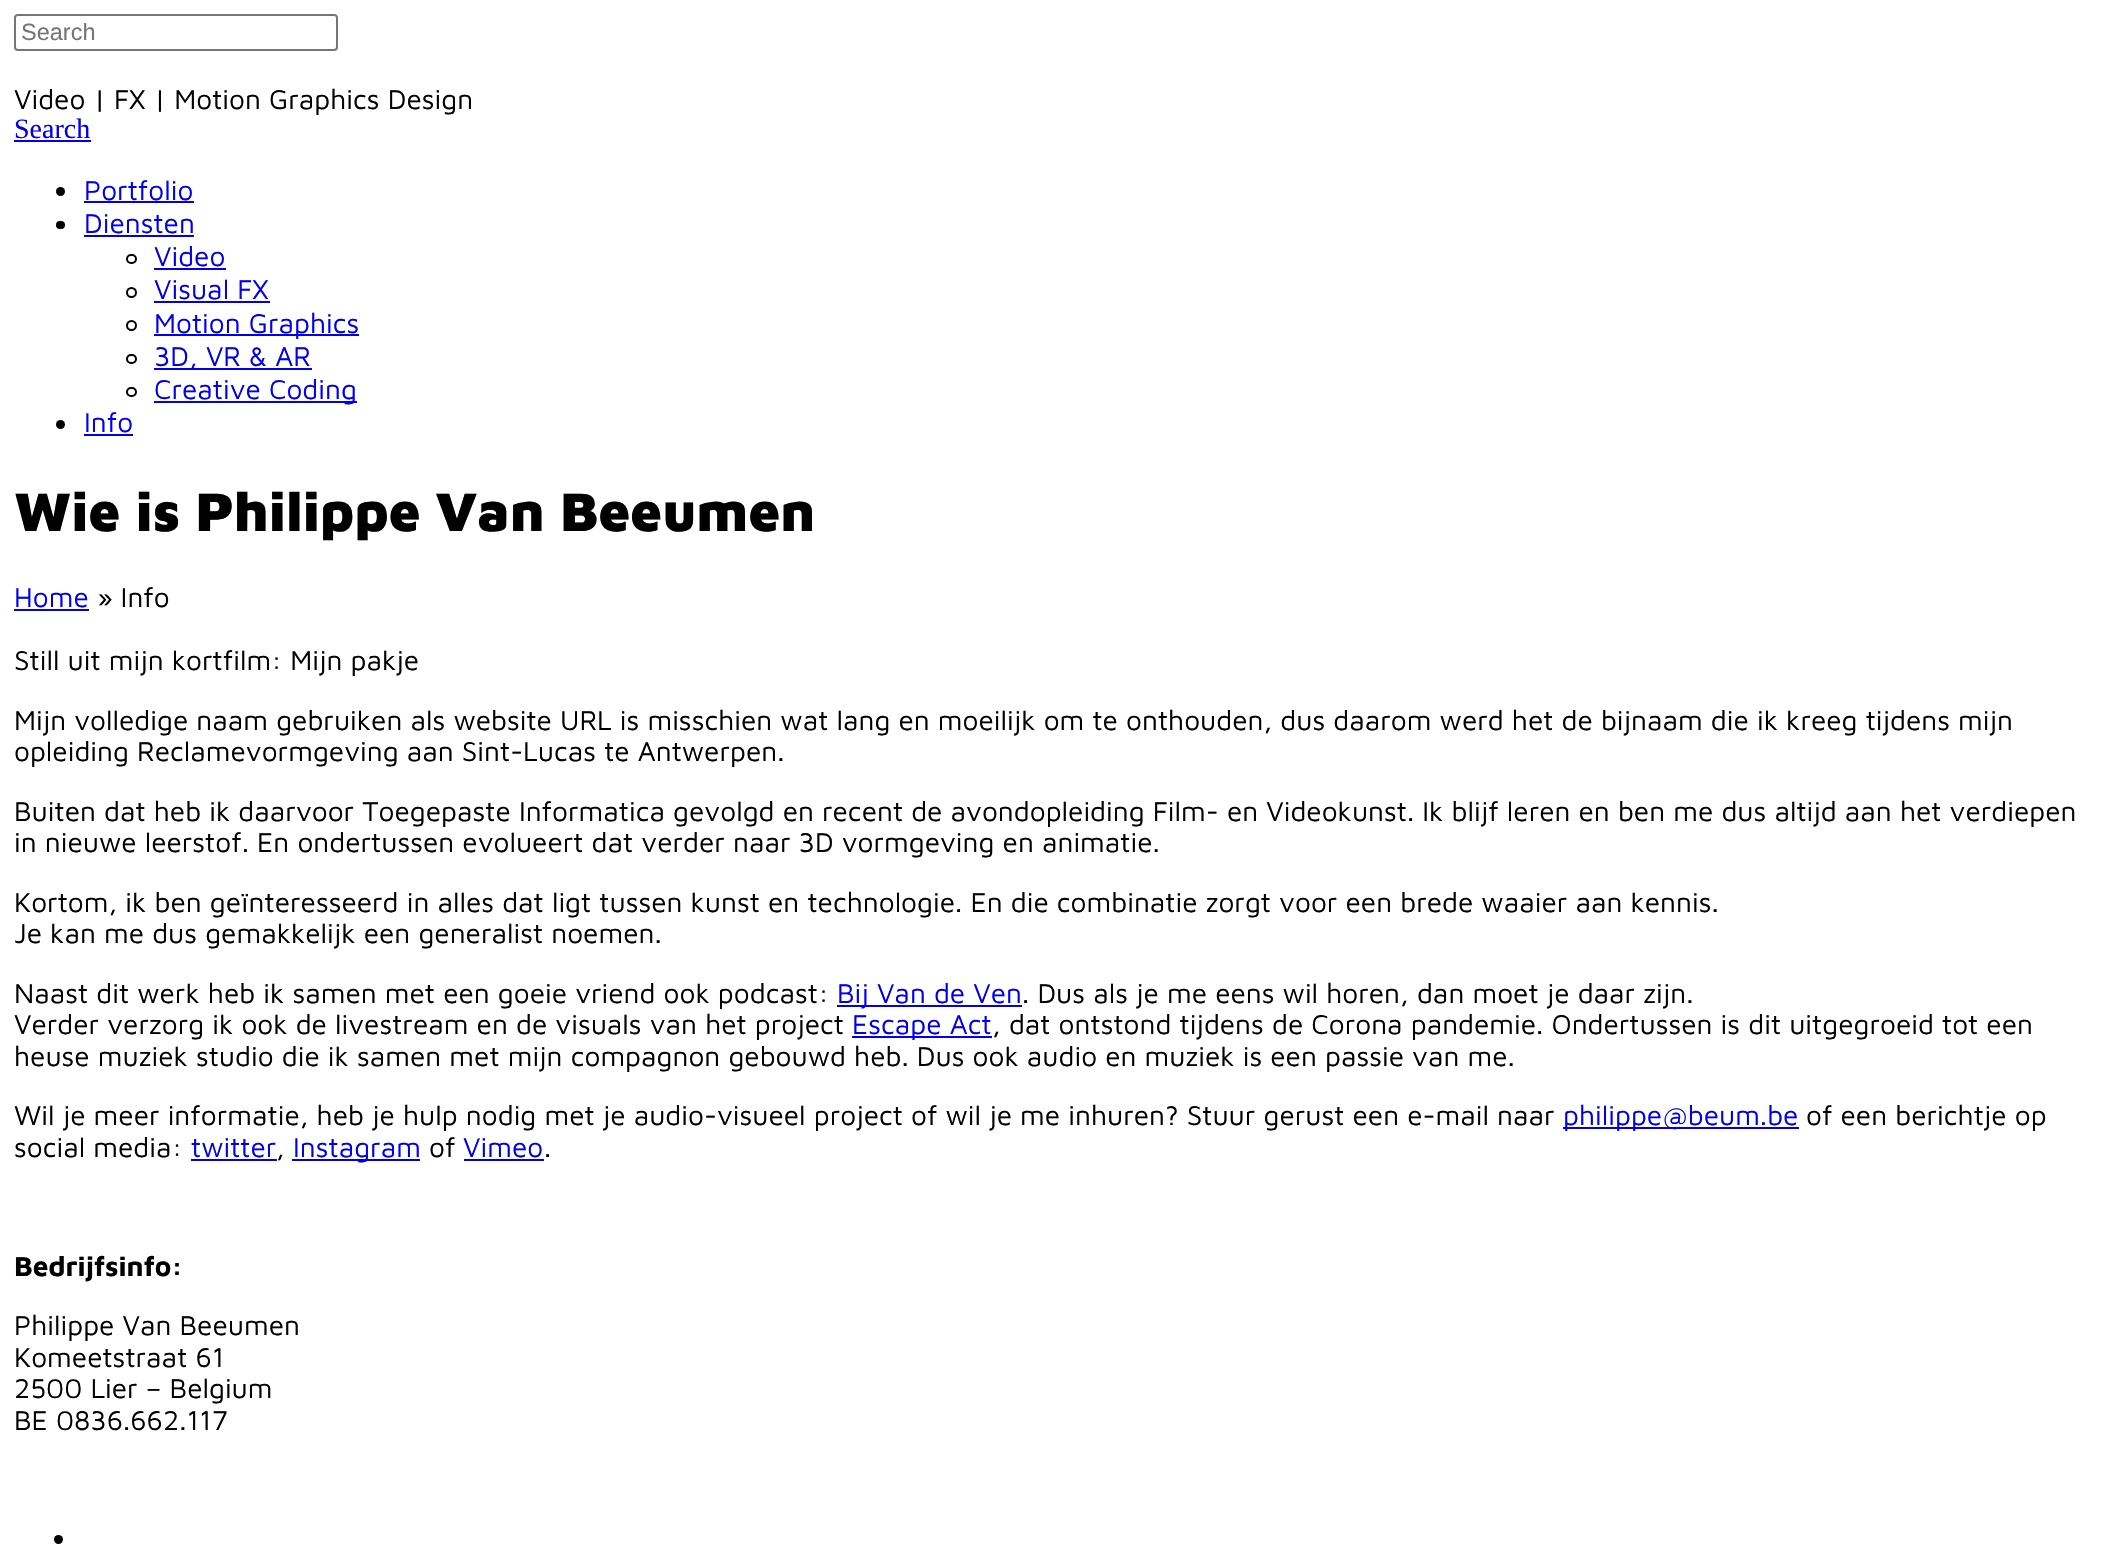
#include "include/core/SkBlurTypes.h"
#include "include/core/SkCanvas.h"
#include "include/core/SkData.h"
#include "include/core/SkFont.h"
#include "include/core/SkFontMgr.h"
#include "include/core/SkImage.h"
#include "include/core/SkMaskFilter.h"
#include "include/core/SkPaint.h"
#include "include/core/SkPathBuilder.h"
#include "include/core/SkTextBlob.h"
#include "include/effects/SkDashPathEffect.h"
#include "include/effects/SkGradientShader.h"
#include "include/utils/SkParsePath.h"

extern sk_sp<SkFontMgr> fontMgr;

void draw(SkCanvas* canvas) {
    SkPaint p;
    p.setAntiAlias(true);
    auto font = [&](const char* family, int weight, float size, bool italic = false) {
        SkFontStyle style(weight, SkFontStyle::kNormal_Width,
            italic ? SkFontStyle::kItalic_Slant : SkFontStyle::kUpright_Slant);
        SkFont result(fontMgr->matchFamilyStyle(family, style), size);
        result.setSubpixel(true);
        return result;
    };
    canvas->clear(0xFFFFFFFF);
    p.setStyle(SkPaint::kStroke_Style);
    p.setStrokeWidth(2);
    p.setColor(0xFF767676);
    canvas->drawRoundRect(SkRect::MakeLTRB(15, 15, 337, 50), 3, 3, p);
    auto font1 = font("Liberation Sans", 400, 23.5f);
    p.setStyle(SkPaint::kFill_Style);
    p.setColor(0xFF757575);
    canvas->drawString("Search", 21, 40, font1, p);
    auto font2 = font("Maven Pro", 400, 28);
    p.setColor(0xFF000000);
    canvas->drawString("Video | FX | Motion Graphics Design", 14, 109, font2, p);
    auto font3 = font("Liberation Serif", 400, 28);
    p.setColor(0xFF0000EE);
    canvas->drawString("Search", 14, 138, font3, p);
    canvas->drawRect(SkRect::MakeLTRB(14, 140, 91, 142), p);
    p.setColor(0xFF000000);
    canvas->drawCircle(60.5f, 191.5f, 4.5f, p);
    p.setColor(0xFF0000EE);
    canvas->drawString("Portfolio", 84, 200, font2, p);
    canvas->drawRect(SkRect::MakeLTRB(84, 201, 194, 203), p);
    p.setColor(0xFF000000);
    canvas->drawRoundRect(SkRect::MakeLTRB(56, 221, 65, 229), 4, 4, p);
    p.setColor(0xFF0000EE);
    canvas->drawString("Diensten", 84, 233, font2, p);
    canvas->drawRect(SkRect::MakeLTRB(84, 235, 194, 237), p);
    p.setStyle(SkPaint::kStroke_Style);
    p.setColor(0xFF000000);
    canvas->drawRoundRect(SkRect::MakeLTRB(127, 255, 136, 263), 4, 4, p);
    p.setStyle(SkPaint::kFill_Style);
    p.setColor(0xFF0000EE);
    canvas->drawString("Video", 154, 266, font2, p);
    canvas->drawRect(SkRect::MakeLTRB(154, 268, 226, 270), p);
    p.setStyle(SkPaint::kStroke_Style);
    p.setColor(0xFF000000);
    canvas->drawCircle(131.5f, 292.5f, 4.5f, p);
    p.setStyle(SkPaint::kFill_Style);
    p.setColor(0xFF0000EE);
    canvas->drawString("Visual FX", 154, 299, font2, p);
    canvas->drawRect(SkRect::MakeLTRB(154, 301, 270, 303), p);
    p.setStyle(SkPaint::kStroke_Style);
    p.setColor(0xFF000000);
    canvas->drawCircle(131.5f, 325.5f, 4.5f, p);
    p.setStyle(SkPaint::kFill_Style);
    p.setColor(0xFF0000EE);
    canvas->drawRect(SkRect::MakeLTRB(154, 334, 359, 336), p);
    canvas->drawString("Motion Graphics", 154, 333, font2, p);
    p.setStyle(SkPaint::kStroke_Style);
    p.setColor(0xFF000000);
    canvas->drawRoundRect(SkRect::MakeLTRB(127, 355, 136, 363), 4, 4, p);
    p.setStyle(SkPaint::kFill_Style);
    p.setColor(0xFF0000EE);
    canvas->drawRect(SkRect::MakeLTRB(154, 368, 312, 370), p);
    canvas->drawString("3D, VR & AR", 154, 366, font2, p);
    p.setStyle(SkPaint::kStroke_Style);
    p.setColor(0xFF000000);
    canvas->drawRoundRect(SkRect::MakeLTRB(127, 388, 136, 396), 4, 4, p);
    p.setStyle(SkPaint::kFill_Style);
    p.setColor(0xFF0000EE);
    canvas->drawRect(SkRect::MakeLTRB(154, 401, 357, 403), p);
    canvas->drawString("Creative Coding", 154, 399, font2, p);
    p.setColor(0xFF000000);
    canvas->drawCircle(60.5f, 424.5f, 4.5f, p);
    p.setColor(0xFF0000EE);
    canvas->drawString("Info", 84, 432, font2, p);
    canvas->drawRect(SkRect::MakeLTRB(84, 434, 133, 436), p);
    auto font4 = font("Maven Pro", 900, 56);
    p.setColor(0xFF000000);
    canvas->drawString("Wie is Philippe Van Beeumen", 14, 531, font4, p);
    p.setColor(0xFF0000EE);
    canvas->drawString("Home", 14, 607, font2, p);
    canvas->drawRect(SkRect::MakeLTRB(14, 609, 89, 611), p);
    p.setColor(0xFF000000);
    {
        const struct { const char* s; float x, y; } items[] = {
            {"» Info", 97, 607},
            {"Still uit mijn kortfilm: Mijn pakje", 14, 670},
            {"Mijn volledige naam gebruiken als website URL is misschien wat lang en moeilijk om te onthouden, dus daarom werd het de bijnaam die ik kreeg tijdens mijn", 14, 730},
            {"opleiding Reclamevormgeving aan Sint-Lucas te Antwerpen.", 14, 761},
            {"Buiten dat heb ik daarvoor Toegepaste Informatica gevolgd en recent de avondopleiding Film- en Videokunst. Ik blijf leren en ben me dus altijd aan het verdiepen", 14, 821},
            {"in nieuwe leerstof. En ondertussen evolueert dat verder naar 3D vormgeving en animatie.", 14, 852},
            {"Kortom, ik ben geïnteresseerd in alles dat ligt tussen kunst en technologie. En die combinatie zorgt voor een brede waaier aan kennis.", 14, 912},
            {"Je kan me dus gemakkelijk een generalist noemen.", 14, 943},
            {"Naast dit werk heb ik samen met een goeie vriend ook podcast:", 14, 1003},
        };
        for (auto [s, x, y] : items) {
            canvas->drawString(s, x, y, font2, p);
        }
    }
    p.setColor(0xFF0000EE);
    canvas->drawRect(SkRect::MakeLTRB(837, 1005, 1022, 1007), p);
    canvas->drawString("Bij Van de Ven", 837, 1003, font2, p);
    p.setColor(0xFF000000);
    canvas->drawString(". Dus als je me eens wil horen, dan moet je daar zijn.", 1022, 1003, font2, p);
    canvas->drawString("Verder verzorg ik ook de livestream en de visuals van het project", 14, 1034, font2, p);
    p.setColor(0xFF0000EE);
    canvas->drawRect(SkRect::MakeLTRB(852, 1036, 992, 1038), p);
    canvas->drawString("Escape Act", 852, 1034, font2, p);
    p.setColor(0xFF000000);
    {
        const struct { const char* s; float x, y; } items[] = {
            {", dat ontstond tijdens de Corona pandemie. Ondertussen is dit uitgegroeid tot een", 992, 1034},
            {"heuse muziek studio die ik samen met mijn compagnon gebouwd heb. Dus ook audio en muziek is een passie van me.", 14, 1066},
            {"Wil je meer informatie, heb je hulp nodig met je audio-visueel project of wil je me inhuren? Stuur gerust een e-mail naar", 14, 1125},
        };
        for (auto [s, x, y] : items) {
            canvas->drawString(s, x, y, font2, p);
        }
    }
    p.setColor(0xFF0000EE);
    canvas->drawRect(SkRect::MakeLTRB(1563, 1127, 1799, 1129), p);
    canvas->drawString("philippe@beum.be", 1563, 1125, font2, p);
    p.setColor(0xFF000000);
    canvas->drawString("of een berichtje op", 1806, 1125, font2, p);
    canvas->drawString("social media:", 14, 1157, font2, p);
    p.setColor(0xFF0000EE);
    canvas->drawString("twitter", 191, 1157, font2, p);
    canvas->drawRect(SkRect::MakeLTRB(191, 1159, 277, 1161), p);
    p.setColor(0xFF000000);
    canvas->drawString(",", 276, 1157, font2, p);
    p.setColor(0xFF0000EE);
    canvas->drawRect(SkRect::MakeLTRB(292, 1159, 420, 1161), p);
    canvas->drawString("Instagram", 293, 1157, font2, p);
    p.setColor(0xFF000000);
    canvas->drawString("of", 429, 1157, font2, p);
    p.setColor(0xFF0000EE);
    canvas->drawString("Vimeo", 463, 1157, font2, p);
    canvas->drawRect(SkRect::MakeLTRB(464, 1159, 544, 1161), p);
    p.setColor(0xFF000000);
    canvas->drawString(".", 544, 1157, font2, p);
    auto font5 = font("Maven Pro", 700, 28);
    canvas->drawString("Bedrijfsinfo:", 14, 1276, font5, p);
    {
        const struct { const char* s; float x, y; } items[] = {
            {"Philippe Van Beeumen", 14, 1335},
            {"Komeetstraat 61", 14, 1367},
            {"2500 Lier – Belgium", 14, 1398},
            {"BE 0836.662.117", 14, 1430},
        };
        for (auto [s, x, y] : items) {
            canvas->drawString(s, x, y, font2, p);
        }
    }
    canvas->drawCircle(58.5f, 1539.5f, 4.5f, p);
}
